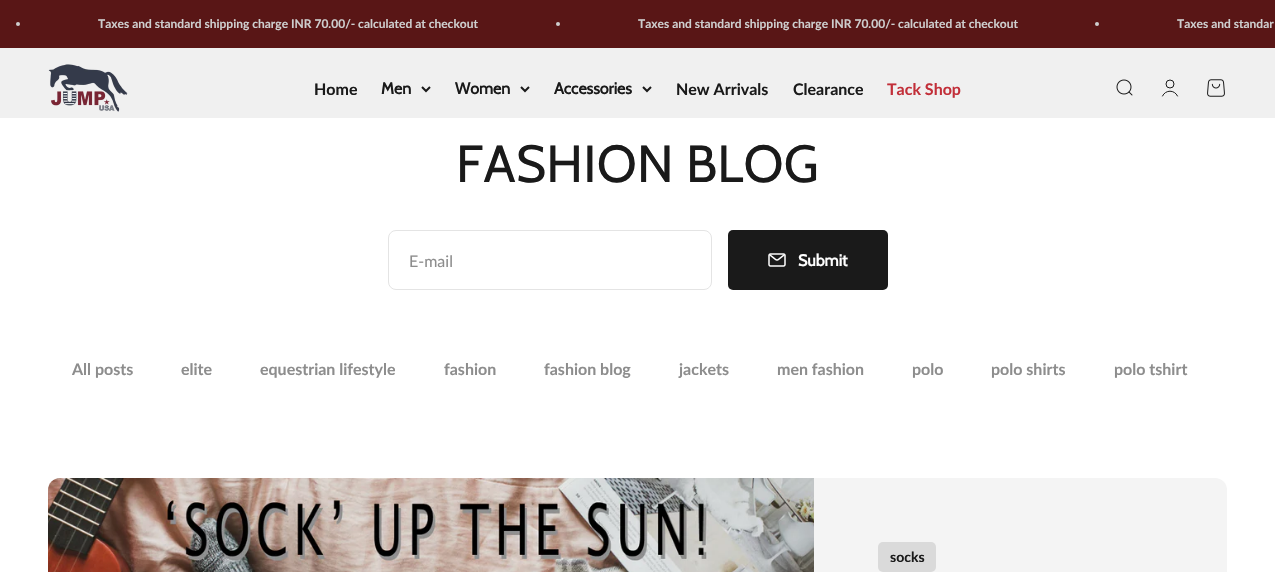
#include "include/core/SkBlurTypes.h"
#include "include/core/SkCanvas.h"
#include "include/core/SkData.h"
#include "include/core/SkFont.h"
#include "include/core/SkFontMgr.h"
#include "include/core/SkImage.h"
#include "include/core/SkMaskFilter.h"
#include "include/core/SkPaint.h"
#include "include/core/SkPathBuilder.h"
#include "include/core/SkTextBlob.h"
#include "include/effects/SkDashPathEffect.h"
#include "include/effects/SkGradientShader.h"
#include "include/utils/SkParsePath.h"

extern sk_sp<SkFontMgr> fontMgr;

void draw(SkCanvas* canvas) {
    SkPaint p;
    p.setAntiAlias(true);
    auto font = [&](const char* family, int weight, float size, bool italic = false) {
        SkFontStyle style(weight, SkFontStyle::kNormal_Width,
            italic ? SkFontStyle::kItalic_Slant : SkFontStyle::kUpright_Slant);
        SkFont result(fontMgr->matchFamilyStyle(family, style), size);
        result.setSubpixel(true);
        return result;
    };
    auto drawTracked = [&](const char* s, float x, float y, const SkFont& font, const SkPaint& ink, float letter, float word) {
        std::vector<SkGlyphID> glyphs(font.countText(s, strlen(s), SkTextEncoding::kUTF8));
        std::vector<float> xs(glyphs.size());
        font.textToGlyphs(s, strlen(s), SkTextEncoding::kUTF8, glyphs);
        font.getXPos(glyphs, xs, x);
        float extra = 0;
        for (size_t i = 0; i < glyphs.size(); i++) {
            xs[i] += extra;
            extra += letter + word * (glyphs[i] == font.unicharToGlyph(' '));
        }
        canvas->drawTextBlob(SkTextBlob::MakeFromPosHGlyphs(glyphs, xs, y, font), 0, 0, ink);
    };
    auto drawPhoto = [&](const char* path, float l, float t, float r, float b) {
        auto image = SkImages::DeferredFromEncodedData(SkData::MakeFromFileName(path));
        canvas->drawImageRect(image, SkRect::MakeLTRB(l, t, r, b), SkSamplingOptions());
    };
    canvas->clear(0xFFFFFFFF);
    p.setColor(0xFF591616);
    canvas->drawRect(SkRect::MakeLTRB(0, 0, 1275, 48), p);
    p.setColor(0xFFCECECE);
    canvas->drawCircle(18, 24, 2, p);
    auto font1 = font("Lato", 700, 12);
    canvas->drawString("Taxes and standard shipping charge INR 70.00/- calculated at checkout", 98, 28, font1, p);
    canvas->drawCircle(558, 24, 2, p);
    canvas->drawString("Taxes and standard shipping charge INR 70.00/- calculated at checkout", 638, 28, font1, p);
    canvas->drawCircle(1097, 24, 2, p);
    canvas->drawString("Taxes and standar", 1177, 28, font1, p);
    p.setColor(0xFFF0F0F0);
    canvas->drawRect(SkRect::MakeLTRB(0, 48, 1275, 118), p);
    drawPhoto("media/1.png", 48, 64, 128, 112);
    auto font2 = font("Lato", 700, 16);
    p.setColor(0xFF1A1A1A);
    canvas->drawString("Home", 314, 95, font2, p);
    auto font3 = font("Cabin", 700, 16);
    canvas->drawString("Men", 381, 94, font3, p);
    p.setStyle(SkPaint::kStroke_Style);
    p.setStrokeWidth(2);
    canvas->drawPath(SkPathBuilder().moveTo(422, 87).lineTo(426, 91).lineTo(430, 87).detach(), p);
    p.setStyle(SkPaint::kFill_Style);
    canvas->drawString("Women", 455, 94, font3, p);
    p.setStyle(SkPaint::kStroke_Style);
    canvas->drawPath(SkPathBuilder().moveTo(521, 87).lineTo(525, 91).lineTo(529, 87).detach(), p);
    p.setStyle(SkPaint::kFill_Style);
    canvas->drawString("Accessories", 554, 94, font3, p);
    p.setStyle(SkPaint::kStroke_Style);
    canvas->drawPath(SkPathBuilder().moveTo(643, 87).lineTo(647, 91).lineTo(651, 87).detach(), p);
    p.setStyle(SkPaint::kFill_Style);
    canvas->drawString("New Arrivals", 676, 95, font2, p);
    canvas->drawString("Clearance", 793, 95, font2, p);
    p.setColor(0xFFC22F39);
    canvas->drawString("Tack Shop", 887, 95, font2, p);
    drawPhoto("media/2.png", 1116, 79, 1133, 96);
    p.setStyle(SkPaint::kStroke_Style);
    p.setStrokeWidth(1);
    p.setColor(0xFF1A1A1A);
    canvas->drawCircle(1170, 84, 4, p);
    p.setStrokeCap(SkPaint::kRound_Cap);
    canvas->drawPath(SkPathBuilder().moveTo(1162.5f, 96).cubicTo(1165.5f, 89.5f, 1174.5f, 89.5f, 1177.5f, 96).detach(), p);
    drawPhoto("media/3.png", 1207, 79, 1225, 97);
    auto font4 = font("Cabin", 400, 52);
    p.setStyle(SkPaint::kFill_Style);
    drawTracked("FASHION BLOG", 456, 182, font4, p, 0.25f, 0);
    p.setStyle(SkPaint::kStroke_Style);
    p.setStrokeCap(SkPaint::kButt_Cap);
    p.setColor(0xFFE4E4E4);
    canvas->drawRoundRect(SkRect::MakeLTRB(388.5f, 230.5f, 711.5f, 289.5f), 7.5f, 7.5f, p);
    auto font5 = font("Lato", 400, 16);
    p.setStyle(SkPaint::kFill_Style);
    p.setColor(0xFF8D8D8D);
    canvas->drawString("E-mail", 409, 267, font5, p);
    p.setColor(0xFF1A1A1A);
    canvas->drawRoundRect(SkRect::MakeLTRB(728, 230, 888, 290), 5, 5, p);
    drawPhoto("media/4.png", 768, 253, 786, 267);
    p.setColor(0xFFFFFFFF);
    canvas->drawString("Submit", 798, 266, font3, p);
    p.setColor(0xFF8D8D8D);
    {
        const struct { const char* s; float x, y; } items[] = {
            {"All posts", 72, 375},
            {"elite", 181, 375},
            {"equestrian lifestyle", 260, 375},
            {"fashion", 444, 375},
            {"fashion blog", 544, 375},
            {"jackets", 679, 375},
            {"men fashion", 777, 375},
            {"polo", 912, 375},
            {"polo shirts", 991, 375},
            {"polo tshirt", 1114, 375},
        };
        for (auto [s, x, y] : items) {
            canvas->drawString(s, x, y, font2, p);
        }
    }
    p.setColor(0xFFF4F4F4);
    canvas->drawRoundRect(SkRect::MakeLTRB(48, 478, 1227, 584), 12, 12, p);
    drawPhoto("media/5.png", 48, 478, 814, 572);
    p.setColor(0xFFDADADA);
    canvas->drawRoundRect(SkRect::MakeLTRB(878, 542, 936, 572), 5, 5, p);
    auto font6 = font("Lato", 700, 14);
    p.setColor(0xFF1A1A1A);
    canvas->drawString("socks", 890, 562, font6, p);
}
